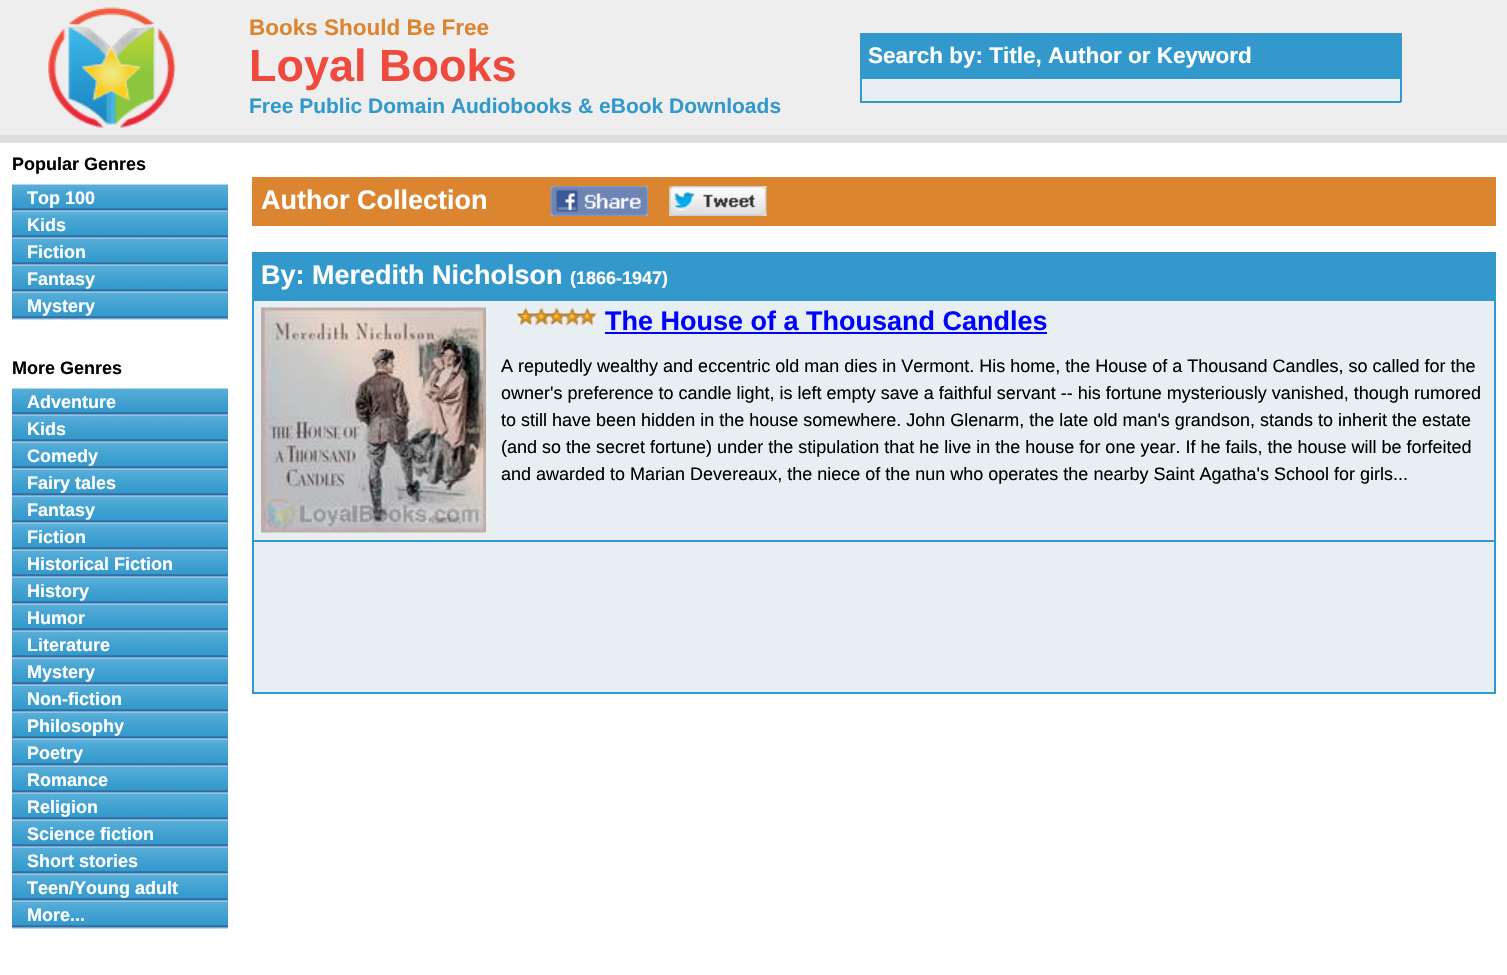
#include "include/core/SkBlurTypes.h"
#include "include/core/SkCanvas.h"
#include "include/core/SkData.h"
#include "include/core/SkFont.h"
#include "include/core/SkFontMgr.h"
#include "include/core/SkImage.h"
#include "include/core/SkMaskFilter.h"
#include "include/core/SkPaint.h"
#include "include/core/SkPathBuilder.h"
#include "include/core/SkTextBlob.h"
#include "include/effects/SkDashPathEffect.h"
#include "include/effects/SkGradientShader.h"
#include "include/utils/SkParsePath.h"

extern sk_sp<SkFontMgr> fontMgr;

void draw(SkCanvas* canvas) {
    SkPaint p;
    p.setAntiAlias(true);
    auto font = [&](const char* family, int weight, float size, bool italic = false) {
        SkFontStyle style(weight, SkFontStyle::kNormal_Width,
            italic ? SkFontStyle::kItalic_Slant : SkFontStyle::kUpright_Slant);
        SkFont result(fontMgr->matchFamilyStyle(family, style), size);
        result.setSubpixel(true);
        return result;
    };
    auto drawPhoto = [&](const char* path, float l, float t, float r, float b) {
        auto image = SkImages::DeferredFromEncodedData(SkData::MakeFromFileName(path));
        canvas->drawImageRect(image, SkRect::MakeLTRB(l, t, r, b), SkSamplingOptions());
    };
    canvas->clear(0xFFFFFFFF);
    p.setColor(0xFFEEEEEE);
    canvas->drawRect(SkRect::MakeLTRB(0, 0, 1507, 135), p);
    p.setColor(0xFFDDDDDD);
    canvas->drawRect(SkRect::MakeLTRB(0, 135, 1507, 143), p);
    drawPhoto("media/1.png", 48, 7, 176, 128);
    auto font1 = font("Liberation Sans", 700, 22.5f);
    p.setColor(0xFFDC8531);
    canvas->drawString("Books Should Be Free", 249, 35, font1, p);
    auto font2 = font("Liberation Sans", 700, 45);
    p.setColor(0xFFEE4B3E);
    canvas->drawString("Loyal Books", 249, 81, font2, p);
    auto font3 = font("Liberation Sans", 700, 21);
    p.setColor(0xFF3399CC);
    canvas->drawString("Free Public Domain Audiobooks & eBook Downloads", 249, 113, font3, p);
    {
        const struct { float l, t, r, b; SkColor color; } items[] = {
            {862, 79, 1400, 101, 0xFFE7EFF3},
            {860, 33, 1401, 35, 0xFF3399CC},
            {1400, 33, 1402, 102, 0xFF3399CC},
            {860, 101, 1401, 103, 0xFF3399CC},
            {860, 33, 862, 102, 0xFF3399CC},
            {862, 35, 1400, 77, 0xFF3399CC},
        };
        for (auto [l, t, r, b, color] : items) {
            p.setColor(color);
            canvas->drawRect(SkRect::MakeLTRB(l, t, r, b), p);
        }
    }
    p.setColor(0xFFFFFFFF);
    canvas->drawString("Search by: Title, Author or Keyword", 868, 63, font1, p);
    p.setColor(0xFF3399CC);
    canvas->drawRect(SkRect::MakeLTRB(860, 77, 1401, 79), p);
    auto font4 = font("Liberation Sans", 700, 18);
    p.setColor(0xFF000000);
    canvas->drawString("Popular Genres", 12, 170, font4, p);
    drawPhoto("media/2.png", 12, 184, 228, 212);
    p.setColor(0xFFFFFFFF);
    canvas->drawString("Top 100", 27, 204, font4, p);
    drawPhoto("media/3.png", 12, 211, 228, 239);
    canvas->drawString("Kids", 27, 231, font4, p);
    drawPhoto("media/4.png", 12, 238, 228, 266);
    canvas->drawString("Fiction", 27, 258, font4, p);
    drawPhoto("media/5.png", 12, 265, 228, 293);
    canvas->drawString("Fantasy", 27, 285, font4, p);
    drawPhoto("media/5.png", 12, 292, 228, 320);
    canvas->drawString("Mystery", 27, 312, font4, p);
    p.setColor(0xFF000000);
    canvas->drawString("More Genres", 12, 374, font4, p);
    drawPhoto("media/6.png", 12, 388, 228, 416);
    p.setColor(0xFFFFFFFF);
    canvas->drawString("Adventure", 27, 408, font4, p);
    drawPhoto("media/7.png", 12, 415, 228, 443);
    canvas->drawString("Kids", 27, 435, font4, p);
    drawPhoto("media/7.png", 12, 442, 228, 470);
    canvas->drawString("Comedy", 27, 462, font4, p);
    drawPhoto("media/8.png", 12, 469, 228, 497);
    canvas->drawString("Fairy tales", 27, 489, font4, p);
    drawPhoto("media/9.png", 12, 496, 228, 524);
    canvas->drawString("Fantasy", 27, 516, font4, p);
    drawPhoto("media/10.png", 12, 523, 228, 551);
    canvas->drawString("Fiction", 27, 543, font4, p);
    drawPhoto("media/5.png", 12, 550, 228, 578);
    canvas->drawString("Historical Fiction", 27, 570, font4, p);
    drawPhoto("media/5.png", 12, 577, 228, 605);
    canvas->drawString("History", 27, 597, font4, p);
    drawPhoto("media/5.png", 12, 604, 228, 632);
    canvas->drawString("Humor", 27, 624, font4, p);
    drawPhoto("media/11.png", 12, 631, 228, 659);
    canvas->drawString("Literature", 27, 651, font4, p);
    drawPhoto("media/9.png", 12, 658, 228, 686);
    canvas->drawString("Mystery", 27, 678, font4, p);
    drawPhoto("media/5.png", 12, 685, 228, 713);
    canvas->drawString("Non-fiction", 27, 705, font4, p);
    drawPhoto("media/10.png", 12, 712, 228, 740);
    canvas->drawString("Philosophy", 27, 732, font4, p);
    drawPhoto("media/12.png", 12, 739, 228, 767);
    canvas->drawString("Poetry", 27, 759, font4, p);
    drawPhoto("media/11.png", 12, 766, 228, 794);
    canvas->drawString("Romance", 27, 786, font4, p);
    drawPhoto("media/5.png", 12, 793, 228, 821);
    canvas->drawString("Religion", 27, 813, font4, p);
    drawPhoto("media/5.png", 12, 820, 228, 848);
    canvas->drawString("Science fiction", 27, 840, font4, p);
    drawPhoto("media/13.png", 12, 847, 228, 875);
    canvas->drawString("Short stories", 27, 867, font4, p);
    drawPhoto("media/14.png", 12, 874, 228, 902);
    canvas->drawString("Teen/Young adult", 27, 894, font4, p);
    drawPhoto("media/14.png", 12, 901, 228, 929);
    canvas->drawString("More...", 27, 921, font4, p);
    {
        const struct { float l, t, r, b; SkColor color; } items[] = {
            {252, 177, 1496, 179, 0xFFDC8531},
            {252, 224, 1496, 226, 0xFFDC8531},
            {252, 177, 254, 225, 0xFFDC8531},
            {254, 179, 1496, 224, 0xFFDC8531},
        };
        for (auto [l, t, r, b, color] : items) {
            p.setColor(color);
            canvas->drawRect(SkRect::MakeLTRB(l, t, r, b), p);
        }
    }
    auto font5 = font("Liberation Sans", 700, 27);
    p.setColor(0xFFFFFFFF);
    canvas->drawString("Author Collection", 261, 209, font5, p);
    drawPhoto("media/15.png", 550, 186, 648, 216);
    drawPhoto("media/16.png", 669, 186, 767, 216);
    {
        const struct { float l, t, r, b; SkColor color; } items[] = {
            {254, 301, 1494, 692, 0xFFE7EFF3},
            {252, 252, 1496, 254, 0xFF3399CC},
            {1494, 252, 1496, 693, 0xFF3399CC},
            {252, 692, 1496, 694, 0xFF3399CC},
            {252, 252, 254, 693, 0xFF3399CC},
            {254, 254, 1494, 299, 0xFF3399CC},
        };
        for (auto [l, t, r, b, color] : items) {
            p.setColor(color);
            canvas->drawRect(SkRect::MakeLTRB(l, t, r, b), p);
        }
    }
    p.setColor(0xFFFFFFFF);
    canvas->drawString("By: Meredith Nicholson", 261, 284, font5, p);
    canvas->drawString("(1866-1947)", 570, 284, font4, p);
    p.setColor(0xFF3399CC);
    canvas->drawRect(SkRect::MakeLTRB(252, 299, 1496, 301), p);
    drawPhoto("media/17.png", 261, 307, 486, 533);
    drawPhoto("media/18.png", 514, 307, 599, 326);
    p.setColor(0xFF0000FF);
    canvas->drawString("The House of a Thousand Candles", 605, 330, font5, p);
    canvas->drawRect(SkRect::MakeLTRB(605, 332, 1047, 334), p);
    auto font6 = font("Liberation Sans", 400, 18);
    p.setColor(0xFF000000);
    {
        const struct { const char* s; float x, y; } items[] = {
            {"A reputedly wealthy and eccentric old man dies in Vermont. His home, the House of a Thousand Candles, so called for the", 501, 372},
            {"owner's preference to candle light, is left empty save a faithful servant -- his fortune mysteriously vanished, though rumored", 501, 399},
            {"to still have been hidden in the house somewhere. John Glenarm, the late old man's grandson, stands to inherit the estate", 501, 426},
            {"(and so the secret fortune) under the stipulation that he live in the house for one year. If he fails, the house will be forfeited", 501, 453},
            {"and awarded to Marian Devereaux, the niece of the nun who operates the nearby Saint Agatha's School for girls...", 501, 480},
        };
        for (auto [s, x, y] : items) {
            canvas->drawString(s, x, y, font6, p);
        }
    }
    p.setColor(0xFF3399CC);
    canvas->drawRect(SkRect::MakeLTRB(252, 540, 1496, 542), p);
}
